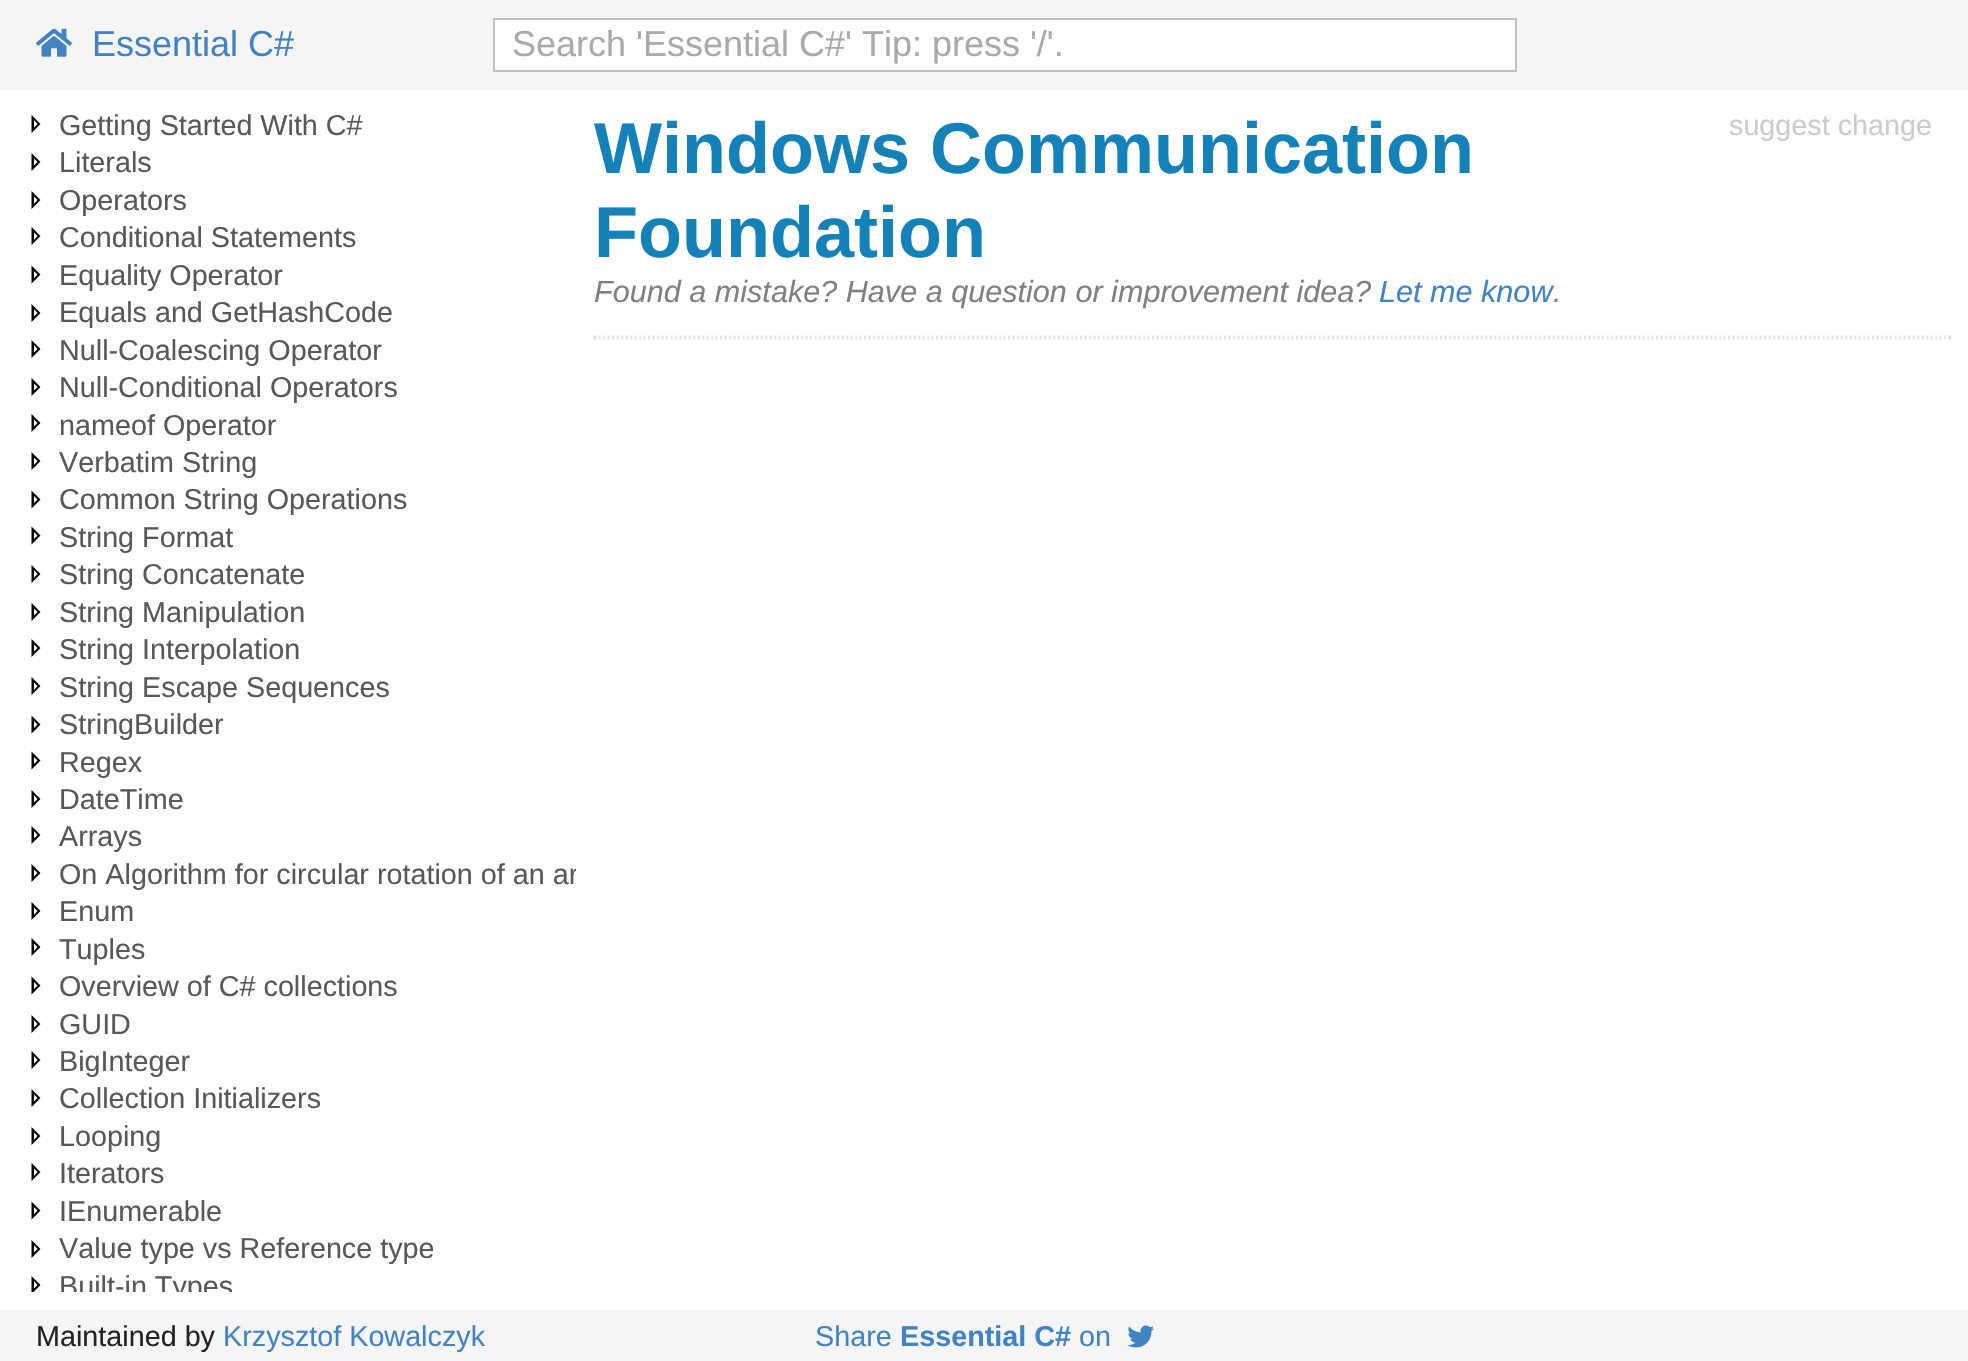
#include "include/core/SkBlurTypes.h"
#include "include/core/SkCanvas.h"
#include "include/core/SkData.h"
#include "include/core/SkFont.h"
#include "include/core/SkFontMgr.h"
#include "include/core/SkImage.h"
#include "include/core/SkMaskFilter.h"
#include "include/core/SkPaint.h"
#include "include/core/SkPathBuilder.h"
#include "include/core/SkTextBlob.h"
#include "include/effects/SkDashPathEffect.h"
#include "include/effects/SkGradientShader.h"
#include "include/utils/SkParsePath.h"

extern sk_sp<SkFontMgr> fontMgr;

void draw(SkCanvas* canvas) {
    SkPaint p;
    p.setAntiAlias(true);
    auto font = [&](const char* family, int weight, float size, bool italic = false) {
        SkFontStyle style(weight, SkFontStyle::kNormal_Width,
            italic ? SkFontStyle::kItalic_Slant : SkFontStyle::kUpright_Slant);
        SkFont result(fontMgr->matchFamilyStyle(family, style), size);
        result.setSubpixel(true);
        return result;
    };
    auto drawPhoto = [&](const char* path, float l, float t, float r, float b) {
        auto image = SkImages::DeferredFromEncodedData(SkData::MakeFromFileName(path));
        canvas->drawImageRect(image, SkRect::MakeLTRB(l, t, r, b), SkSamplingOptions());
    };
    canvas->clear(0xFFFFFFFF);
    p.setColor(0xFFF5F5F5);
    canvas->drawRect(SkRect::MakeLTRB(0, 0, 1968, 90), p);
    drawPhoto("media/1.png", 36, 28, 72, 57);
    auto font1 = font("Liberation Sans", 400, 36);
    p.setColor(0xFF4183C4);
    canvas->drawString("Essential C#", 92, 56, font1, p);
    p.setColor(0xFFFFFFFF);
    canvas->drawRect(SkRect::MakeLTRB(494, 19, 1516, 71), p);
    p.setStyle(SkPaint::kStroke_Style);
    p.setStrokeWidth(2);
    p.setColor(0xFFC0C0C0);
    canvas->drawRect(SkRect::MakeLTRB(494, 19, 1516, 71), p);
    p.setStyle(SkPaint::kFill_Style);
    p.setColor(0xFFAAAAAA);
    canvas->drawString("Search 'Essential C#' Tip: press '/'.", 512, 56, font1, p);
    p.setColor(0xFF000000);
    canvas->drawPath(SkPathBuilder().moveTo(31.5f, 115).lineTo(31.5f, 133).lineTo(40.5f, 124).close().moveTo(34, 120).lineTo(37.5f, 124).lineTo(34, 127.5f).close().moveTo(31.5f, 153).lineTo(31.5f, 171).lineTo(40.5f, 162).close().moveTo(34, 158.5f).lineTo(37.5f, 162).lineTo(34, 165.5f).close().detach(), p);
    auto font2 = font("Liberation Sans", 400, 28.75f);
    p.setColor(0xFF585858);
    canvas->drawString("Getting Started With C#", 59, 135, font2, p);
    canvas->drawString("Literals", 59, 172, font2, p);
    p.setColor(0xFF000000);
    canvas->drawPath(SkPathBuilder().moveTo(31.5f, 191).lineTo(31.5f, 209).lineTo(40.5f, 200).close().moveTo(34, 196.5f).lineTo(37.5f, 200).lineTo(34, 204).close().moveTo(31.5f, 227).lineTo(31.5f, 245).lineTo(40.5f, 236).close().moveTo(34, 232.5f).lineTo(37.5f, 236).lineTo(34, 240).close().detach(), p);
    p.setColor(0xFF585858);
    canvas->drawString("Operators", 59, 210, font2, p);
    canvas->drawString("Conditional Statements", 59, 247, font2, p);
    p.setColor(0xFF000000);
    canvas->drawPath(SkPathBuilder().moveTo(31.5f, 265.5f).lineTo(31.5f, 283.5f).lineTo(40.5f, 274.5f).close().moveTo(34, 271).lineTo(37.5f, 274.5f).lineTo(34, 278).close().moveTo(31.5f, 304).lineTo(31.5f, 322).lineTo(40.5f, 313).close().moveTo(34, 309).lineTo(37.5f, 313).lineTo(34, 316.5f).close().detach(), p);
    p.setColor(0xFF585858);
    canvas->drawString("Equality Operator", 59, 285, font2, p);
    canvas->drawString("Equals and GetHashCode", 59, 322, font2, p);
    p.setColor(0xFF000000);
    canvas->drawPath(SkPathBuilder().moveTo(31.5f, 340).lineTo(31.5f, 358).lineTo(40.5f, 349).close().moveTo(34, 345).lineTo(37.5f, 349).lineTo(34, 352.5f).close().moveTo(31.5f, 378).lineTo(31.5f, 396).lineTo(40.5f, 387).close().moveTo(34, 383.5f).lineTo(37.5f, 387).lineTo(34, 390.5f).close().detach(), p);
    p.setColor(0xFF585858);
    canvas->drawString("Null-Coalescing Operator", 59, 360, font2, p);
    canvas->drawString("Null-Conditional Operators", 59, 397, font2, p);
    p.setColor(0xFF000000);
    canvas->drawPath(SkPathBuilder().moveTo(31.5f, 414).lineTo(31.5f, 432).lineTo(40.5f, 423).close().moveTo(34, 419.5f).lineTo(37.5f, 423).lineTo(34, 426.5f).close().moveTo(31.5f, 452).lineTo(31.5f, 470).lineTo(40.5f, 461).close().moveTo(34, 457.5f).lineTo(37.5f, 461).lineTo(34, 465).close().detach(), p);
    p.setColor(0xFF585858);
    canvas->drawString("nameof Operator", 59, 435, font2, p);
    canvas->drawString("Verbatim String", 59, 472, font2, p);
    p.setColor(0xFF000000);
    canvas->drawPath(SkPathBuilder().moveTo(31.5f, 490.5f).lineTo(31.5f, 508.5f).lineTo(40.5f, 499.5f).close().moveTo(34, 496).lineTo(37.5f, 499.5f).lineTo(34, 503).close().moveTo(31.5f, 526.5f).lineTo(31.5f, 544.5f).lineTo(40.5f, 535.5f).close().moveTo(34, 532).lineTo(37.5f, 535.5f).lineTo(34, 539).close().detach(), p);
    p.setColor(0xFF585858);
    canvas->drawString("Common String Operations", 59, 509, font2, p);
    canvas->drawString("String Format", 59, 547, font2, p);
    p.setColor(0xFF000000);
    canvas->drawPath(SkPathBuilder().moveTo(31.5f, 565).lineTo(31.5f, 583).lineTo(40.5f, 574).close().moveTo(34, 570).lineTo(37.5f, 574).lineTo(34, 577.5f).close().moveTo(31.5f, 603).lineTo(31.5f, 621).lineTo(40.5f, 612).close().moveTo(34, 608.5f).lineTo(37.5f, 612).lineTo(34, 615.5f).close().detach(), p);
    p.setColor(0xFF585858);
    canvas->drawString("String Concatenate", 59, 584, font2, p);
    canvas->drawString("String Manipulation", 59, 622, font2, p);
    p.setColor(0xFF000000);
    canvas->drawPath(SkPathBuilder().moveTo(31.5f, 639).lineTo(31.5f, 657).lineTo(40.5f, 648).close().moveTo(34, 644.5f).lineTo(37.5f, 648).lineTo(34, 651.5f).close().moveTo(31.5f, 677).lineTo(31.5f, 695).lineTo(40.5f, 686).close().moveTo(34, 682.5f).lineTo(37.5f, 686).lineTo(34, 690).close().detach(), p);
    p.setColor(0xFF585858);
    canvas->drawString("String Interpolation", 59, 659, font2, p);
    canvas->drawString("String Escape Sequences", 59, 697, font2, p);
    p.setColor(0xFF000000);
    canvas->drawPath(SkPathBuilder().moveTo(31.5f, 715.5f).lineTo(31.5f, 733.5f).lineTo(40.5f, 724.5f).close().moveTo(34, 721).lineTo(37.5f, 724.5f).lineTo(34, 728).close().moveTo(31.5f, 751.5f).lineTo(31.5f, 769.5f).lineTo(40.5f, 760.5f).close().moveTo(34, 757).lineTo(37.5f, 760.5f).lineTo(34, 764).close().detach(), p);
    p.setColor(0xFF585858);
    canvas->drawString("StringBuilder", 59, 734, font2, p);
    canvas->drawString("Regex", 59, 772, font2, p);
    p.setColor(0xFF000000);
    canvas->drawPath(SkPathBuilder().moveTo(31.5f, 790).lineTo(31.5f, 808).lineTo(40.5f, 799).close().moveTo(34, 795).lineTo(37.5f, 799).lineTo(34, 802.5f).close().moveTo(31.5f, 826).lineTo(31.5f, 844).lineTo(40.5f, 835).close().moveTo(34, 831).lineTo(37.5f, 835).lineTo(34, 838.5f).close().detach(), p);
    p.setColor(0xFF585858);
    canvas->drawString("DateTime", 59, 809, font2, p);
    canvas->drawString("Arrays", 59, 846, font2, p);
    p.setColor(0xFF000000);
    canvas->drawPath(SkPathBuilder().moveTo(31.5f, 864).lineTo(31.5f, 882).lineTo(40.5f, 873).close().moveTo(34, 869.5f).lineTo(37.5f, 873).lineTo(34, 876.5f).close().moveTo(31.5f, 902).lineTo(31.5f, 920).lineTo(40.5f, 911).close().moveTo(34, 907.5f).lineTo(37.5f, 911).lineTo(34, 915).close().detach(), p);
    canvas->save();
    canvas->clipRect(SkRect::MakeLTRB(0, 108, 576, 1292));
    p.setColor(0xFF585858);
    canvas->drawString("On Algorithm for circular rotation of an ar", 59, 884, font2, p);
    canvas->restore();
    canvas->drawString("Enum", 59, 921, font2, p);
    p.setColor(0xFF000000);
    canvas->drawPath(SkPathBuilder().moveTo(31.5f, 938).lineTo(31.5f, 956).lineTo(40.5f, 947).close().moveTo(34, 943.5f).lineTo(37.5f, 947).lineTo(34, 951).close().moveTo(31.5f, 976.5f).lineTo(31.5f, 994.5f).lineTo(40.5f, 985.5f).close().moveTo(34, 982).lineTo(37.5f, 985.5f).lineTo(34, 989).close().detach(), p);
    p.setColor(0xFF585858);
    canvas->drawString("Tuples", 59, 959, font2, p);
    canvas->drawString("Overview of C# collections", 59, 996, font2, p);
    p.setColor(0xFF000000);
    canvas->drawPath(SkPathBuilder().moveTo(31.5f, 1015).lineTo(31.5f, 1033).lineTo(40.5f, 1024).close().moveTo(34, 1020).lineTo(37.5f, 1024).lineTo(34, 1027.5f).close().moveTo(31.5f, 1051).lineTo(31.5f, 1069).lineTo(40.5f, 1060).close().moveTo(34, 1056).lineTo(37.5f, 1060).lineTo(34, 1063.5f).close().detach(), p);
    p.setColor(0xFF585858);
    canvas->drawString("GUID", 59, 1034, font2, p);
    canvas->drawString("BigInteger", 59, 1071, font2, p);
    p.setColor(0xFF000000);
    canvas->drawPath(SkPathBuilder().moveTo(31.5f, 1089).lineTo(31.5f, 1107).lineTo(40.5f, 1098).close().moveTo(34, 1094.5f).lineTo(37.5f, 1098).lineTo(34, 1101.5f).close().moveTo(31.5f, 1127).lineTo(31.5f, 1145).lineTo(40.5f, 1136).close().moveTo(34, 1132.5f).lineTo(37.5f, 1136).lineTo(34, 1140).close().detach(), p);
    p.setColor(0xFF585858);
    canvas->drawString("Collection Initializers", 59, 1108, font2, p);
    canvas->drawString("Looping", 59, 1146, font2, p);
    p.setColor(0xFF000000);
    canvas->drawPath(SkPathBuilder().moveTo(31.5f, 1163).lineTo(31.5f, 1181).lineTo(40.5f, 1172).close().moveTo(34, 1168.5f).lineTo(37.5f, 1172).lineTo(34, 1176).close().moveTo(31.5f, 1201.5f).lineTo(31.5f, 1219.5f).lineTo(40.5f, 1210.5f).close().moveTo(34, 1207).lineTo(37.5f, 1210.5f).lineTo(34, 1214).close().detach(), p);
    p.setColor(0xFF585858);
    canvas->drawString("Iterators", 59, 1183, font2, p);
    canvas->drawString("IEnumerable", 59, 1221, font2, p);
    p.setColor(0xFF000000);
    canvas->drawPath(SkPathBuilder().moveTo(31.5f, 1240).lineTo(31.5f, 1258).lineTo(40.5f, 1249).close().moveTo(34, 1245).lineTo(37.5f, 1249).lineTo(34, 1252.5f).close().detach(), p);
    p.setColor(0xFF585858);
    canvas->drawString("Value type vs Reference type", 59, 1258, font2, p);
    canvas->save();
    canvas->clipRect(SkRect::MakeLTRB(18, 1267, 54, 1292));
    p.setColor(0xFF000000);
    canvas->drawPath(SkPathBuilder().moveTo(31.5f, 1276).lineTo(31.5f, 1294).lineTo(40.5f, 1285).close().moveTo(34, 1281).lineTo(37.5f, 1285).lineTo(34, 1288.5f).close().detach(), p);
    canvas->restore();
    canvas->save();
    canvas->clipRect(SkRect::MakeLTRB(0, 108, 576, 1292));
    p.setColor(0xFF585858);
    canvas->drawString("Built-in Types", 59, 1296, font2, p);
    canvas->restore();
    auto font3 = font("Liberation Sans", 700, 72);
    p.setColor(0xFF1481B8);
    canvas->drawString("Windows Communication", 594, 173, font3, p);
    canvas->drawString("Foundation", 594, 257, font3, p);
    p.setColor(0xFFCCCCCC);
    canvas->drawString("suggest change", 1729, 135, font2, p);
    auto font4 = font("Liberation Sans", 400, 30.6f, true);
    p.setColor(0xFF808080);
    canvas->drawString("Found a mistake? Have a question or improvement idea?", 594, 302, font4, p);
    p.setColor(0xFF4183C4);
    canvas->drawString("Let me know", 1379, 302, font4, p);
    p.setColor(0xFF808080);
    canvas->drawString(".", 1553, 302, font4, p);
    p.setStyle(SkPaint::kStroke_Style);
    p.setStrokeWidth(2.2f);
    p.setColor(0xFFE6E6E6);
    p.setPathEffect(SkDashPathEffect::Make({{2.25f, 2.25f}}, 0));
    canvas->drawPath(SkPathBuilder().moveTo(594, 336.5f).lineTo(1951, 336.5f).detach(), p);
    p.setPathEffect(nullptr);
    p.setStyle(SkPaint::kFill_Style);
    p.setColor(0x1A010101);
    canvas->drawPath(SkPathBuilder().moveTo(1951, 335).lineTo(1951, 340).lineTo(1948.5f, 337.5f).close().detach(), p);
    p.setStyle(SkPaint::kStroke_Style);
    p.setPathEffect(SkDashPathEffect::Make({{2.25f, 2.25f}}, 0));
    canvas->drawPath(SkPathBuilder().moveTo(594, 338.5f).lineTo(1951, 338.5f).detach(), p);
    p.setPathEffect(nullptr);
    p.setStyle(SkPaint::kFill_Style);
    canvas->drawPath(SkPathBuilder().moveTo(594, 340).lineTo(594, 335).lineTo(596, 337.5f).close().detach(), p);
    p.setColor(0xFFF5F5F5);
    canvas->drawRect(SkRect::MakeLTRB(0, 1310, 1968, 1361), p);
    p.setColor(0xFF232323);
    canvas->drawString("Maintained by", 36, 1346, font2, p);
    p.setColor(0xFF4183C4);
    canvas->drawString("Krzysztof Kowalczyk", 223, 1346, font2, p);
    canvas->drawString("Share", 815, 1346, font2, p);
    auto font5 = font("Liberation Sans", 700, 28.75f);
    canvas->drawString("Essential C#", 900, 1346, font5, p);
    canvas->drawString("on", 1079, 1346, font2, p);
    drawPhoto("media/2.png", 1127, 1325, 1154, 1348);
}
